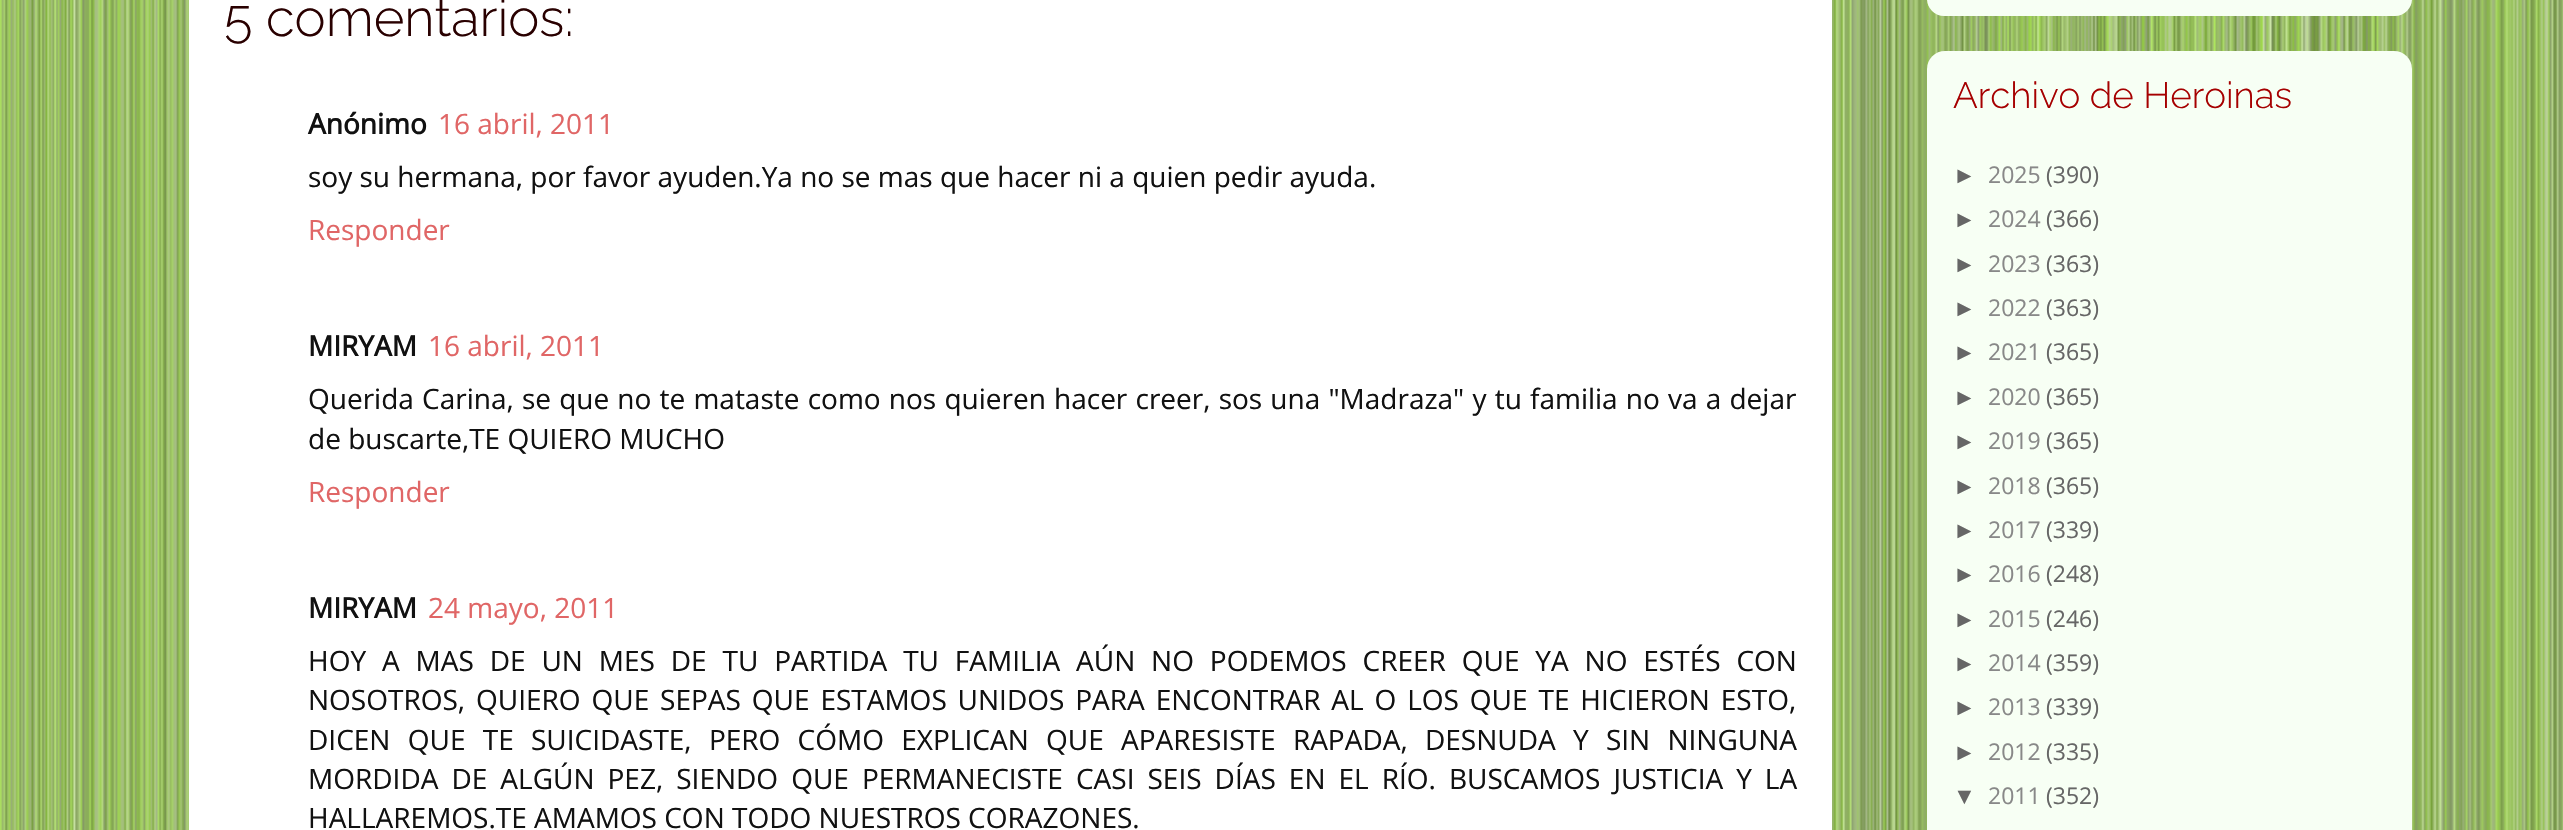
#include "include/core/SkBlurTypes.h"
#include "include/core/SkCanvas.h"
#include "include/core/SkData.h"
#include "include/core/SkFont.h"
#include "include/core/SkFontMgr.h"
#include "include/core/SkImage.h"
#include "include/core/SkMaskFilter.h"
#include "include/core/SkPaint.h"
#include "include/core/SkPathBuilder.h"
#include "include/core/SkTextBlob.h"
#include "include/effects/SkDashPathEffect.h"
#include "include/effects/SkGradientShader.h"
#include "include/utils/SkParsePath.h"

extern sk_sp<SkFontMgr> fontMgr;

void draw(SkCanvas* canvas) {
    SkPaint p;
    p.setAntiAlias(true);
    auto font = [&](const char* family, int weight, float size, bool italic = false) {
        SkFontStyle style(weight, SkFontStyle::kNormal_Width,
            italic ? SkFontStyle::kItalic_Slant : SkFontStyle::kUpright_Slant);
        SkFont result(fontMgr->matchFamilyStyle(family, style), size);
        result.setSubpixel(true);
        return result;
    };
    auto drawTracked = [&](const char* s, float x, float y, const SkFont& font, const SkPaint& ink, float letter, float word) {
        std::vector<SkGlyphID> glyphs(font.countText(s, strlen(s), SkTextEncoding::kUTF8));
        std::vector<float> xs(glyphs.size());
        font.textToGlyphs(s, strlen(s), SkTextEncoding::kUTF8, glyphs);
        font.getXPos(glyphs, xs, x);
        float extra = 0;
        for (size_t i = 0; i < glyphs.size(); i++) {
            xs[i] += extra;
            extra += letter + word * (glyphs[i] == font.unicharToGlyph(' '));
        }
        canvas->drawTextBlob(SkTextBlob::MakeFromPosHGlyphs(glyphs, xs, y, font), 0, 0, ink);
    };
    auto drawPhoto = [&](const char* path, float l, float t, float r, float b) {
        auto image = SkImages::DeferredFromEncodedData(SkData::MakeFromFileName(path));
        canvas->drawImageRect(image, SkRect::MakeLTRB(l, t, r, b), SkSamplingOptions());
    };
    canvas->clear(0xFFFFFFFF);
    drawPhoto("media/1.png", 0, 0, 2563, 830);
    p.setColor(0xFFFFFFFF);
    canvas->drawRect(SkRect::MakeLTRB(189, 0, 1832, 830), p);
    auto font1 = font("Raleway", 100, 52.5f);
    p.setColor(0xFF290000);
    canvas->drawString("5 comentarios:", 224, 36, font1, p);
    auto font2 = font("Open Sans", 700, 28);
    p.setColor(0xFF111111);
    canvas->drawString("Anónimo", 308, 134, font2, p);
    auto font3 = font("Open Sans", 400, 28);
    p.setColor(0xFFE06666);
    canvas->drawString("16 abril, 2011", 438, 134, font3, p);
    p.setColor(0xFF111111);
    canvas->drawString("soy su hermana, por favor ayuden.Ya no se mas que hacer ni a quien pedir ayuda.", 308, 187, font3, p);
    p.setColor(0xFFE06666);
    canvas->drawString("Responder", 308, 240, font3, p);
    p.setColor(0xFF111111);
    canvas->drawString("MIRYAM", 308, 356, font2, p);
    p.setColor(0xFFE06666);
    canvas->drawString("16 abril, 2011", 428, 356, font3, p);
    p.setColor(0xFF111111);
    drawTracked("Querida Carina, se que no te mataste como nos quieren hacer creer, sos una \"Madraza\" y tu familia no va a dejar", 308, 409, font3, p, 0, 0.9f);
    canvas->drawString("de buscarte,TE QUIERO MUCHO", 308, 449, font3, p);
    p.setColor(0xFFE06666);
    canvas->drawString("Responder", 308, 502, font3, p);
    p.setColor(0xFF111111);
    canvas->drawString("MIRYAM", 308, 618, font2, p);
    p.setColor(0xFFE06666);
    canvas->drawString("24 mayo, 2011", 428, 618, font3, p);
    p.setColor(0xFF111111);
    drawTracked("HOY A MAS DE UN MES DE TU PARTIDA TU FAMILIA AÚN NO PODEMOS CREER QUE YA NO ESTÉS CON", 308, 671, font3, p, 0, 8.6f);
    drawTracked("NOSOTROS, QUIERO QUE SEPAS QUE ESTAMOS UNIDOS PARA ENCONTRAR AL O LOS QUE TE HICIERON ESTO,", 308, 710, font3, p, 0, 3.6f);
    drawTracked("DICEN QUE TE SUICIDASTE, PERO CÓMO EXPLICAN QUE APARESISTE RAPADA, DESNUDA Y SIN NINGUNA", 308, 750, font3, p, 0, 10);
    drawTracked("MORDIDA DE ALGÚN PEZ, SIENDO QUE PERMANECISTE CASI SEIS DÍAS EN EL RÍO. BUSCAMOS JUSTICIA Y LA", 308, 789, font3, p, 0, 5.75f);
    canvas->drawString("HALLAREMOS.TE AMAMOS CON TODO NUESTROS CORAZONES.", 308, 828, font3, p);
    p.setColor(0xFFF7FFF4);
    canvas->drawRoundRect(SkRect::MakeLTRB(1927, -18, 2412, 16), 18, 18, p);
    canvas->drawRoundRect(SkRect::MakeLTRB(1927, 51, 2412, 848), 18, 18, p);
    auto font4 = font("Raleway", 100, 36.75f);
    p.setColor(0xFFA60000);
    canvas->drawString("Archivo de Heroinas", 1953, 108, font4, p);
    auto font5 = font("Liberation Sans", 400, 23);
    p.setColor(0xFF666666);
    canvas->drawString("►", 1953, 183, font5, p);
    auto font6 = font("Open Sans", 400, 23);
    p.setColor(0xFF888888);
    canvas->drawString("2025", 1988, 183, font6, p);
    p.setColor(0xFF666666);
    canvas->drawString("(390)", 2046, 183, font6, p);
    canvas->drawString("►", 1953, 227, font5, p);
    p.setColor(0xFF888888);
    canvas->drawString("2024", 1988, 227, font6, p);
    p.setColor(0xFF666666);
    canvas->drawString("(366)", 2046, 227, font6, p);
    canvas->drawString("►", 1953, 272, font5, p);
    p.setColor(0xFF888888);
    canvas->drawString("2023", 1988, 272, font6, p);
    p.setColor(0xFF666666);
    canvas->drawString("(363)", 2046, 272, font6, p);
    canvas->drawString("►", 1953, 316, font5, p);
    p.setColor(0xFF888888);
    canvas->drawString("2022", 1988, 316, font6, p);
    p.setColor(0xFF666666);
    canvas->drawString("(363)", 2046, 316, font6, p);
    canvas->drawString("►", 1953, 360, font5, p);
    p.setColor(0xFF888888);
    canvas->drawString("2021", 1988, 360, font6, p);
    p.setColor(0xFF666666);
    canvas->drawString("(365)", 2046, 360, font6, p);
    canvas->drawString("►", 1953, 405, font5, p);
    p.setColor(0xFF888888);
    canvas->drawString("2020", 1988, 405, font6, p);
    p.setColor(0xFF666666);
    canvas->drawString("(365)", 2046, 405, font6, p);
    canvas->drawString("►", 1953, 449, font5, p);
    p.setColor(0xFF888888);
    canvas->drawString("2019", 1988, 449, font6, p);
    p.setColor(0xFF666666);
    canvas->drawString("(365)", 2046, 449, font6, p);
    canvas->drawString("►", 1953, 494, font5, p);
    p.setColor(0xFF888888);
    canvas->drawString("2018", 1988, 494, font6, p);
    p.setColor(0xFF666666);
    canvas->drawString("(365)", 2046, 494, font6, p);
    canvas->drawString("►", 1953, 538, font5, p);
    p.setColor(0xFF888888);
    canvas->drawString("2017", 1988, 538, font6, p);
    p.setColor(0xFF666666);
    canvas->drawString("(339)", 2046, 538, font6, p);
    canvas->drawString("►", 1953, 582, font5, p);
    p.setColor(0xFF888888);
    canvas->drawString("2016", 1988, 582, font6, p);
    p.setColor(0xFF666666);
    canvas->drawString("(248)", 2046, 582, font6, p);
    canvas->drawString("►", 1953, 627, font5, p);
    p.setColor(0xFF888888);
    canvas->drawString("2015", 1988, 627, font6, p);
    p.setColor(0xFF666666);
    canvas->drawString("(246)", 2046, 627, font6, p);
    canvas->drawString("►", 1953, 671, font5, p);
    p.setColor(0xFF888888);
    canvas->drawString("2014", 1988, 671, font6, p);
    p.setColor(0xFF666666);
    canvas->drawString("(359)", 2046, 671, font6, p);
    canvas->drawString("►", 1953, 715, font5, p);
    p.setColor(0xFF888888);
    canvas->drawString("2013", 1988, 715, font6, p);
    p.setColor(0xFF666666);
    canvas->drawString("(339)", 2046, 715, font6, p);
    canvas->drawString("►", 1953, 760, font5, p);
    p.setColor(0xFF888888);
    canvas->drawString("2012", 1988, 760, font6, p);
    p.setColor(0xFF666666);
    canvas->drawString("(335)", 2046, 760, font6, p);
    canvas->drawString("▼", 1953, 804, font5, p);
    p.setColor(0xFF888888);
    canvas->drawString("2011", 1988, 804, font6, p);
    p.setColor(0xFF666666);
    canvas->drawString("(352)", 2046, 804, font6, p);
}
